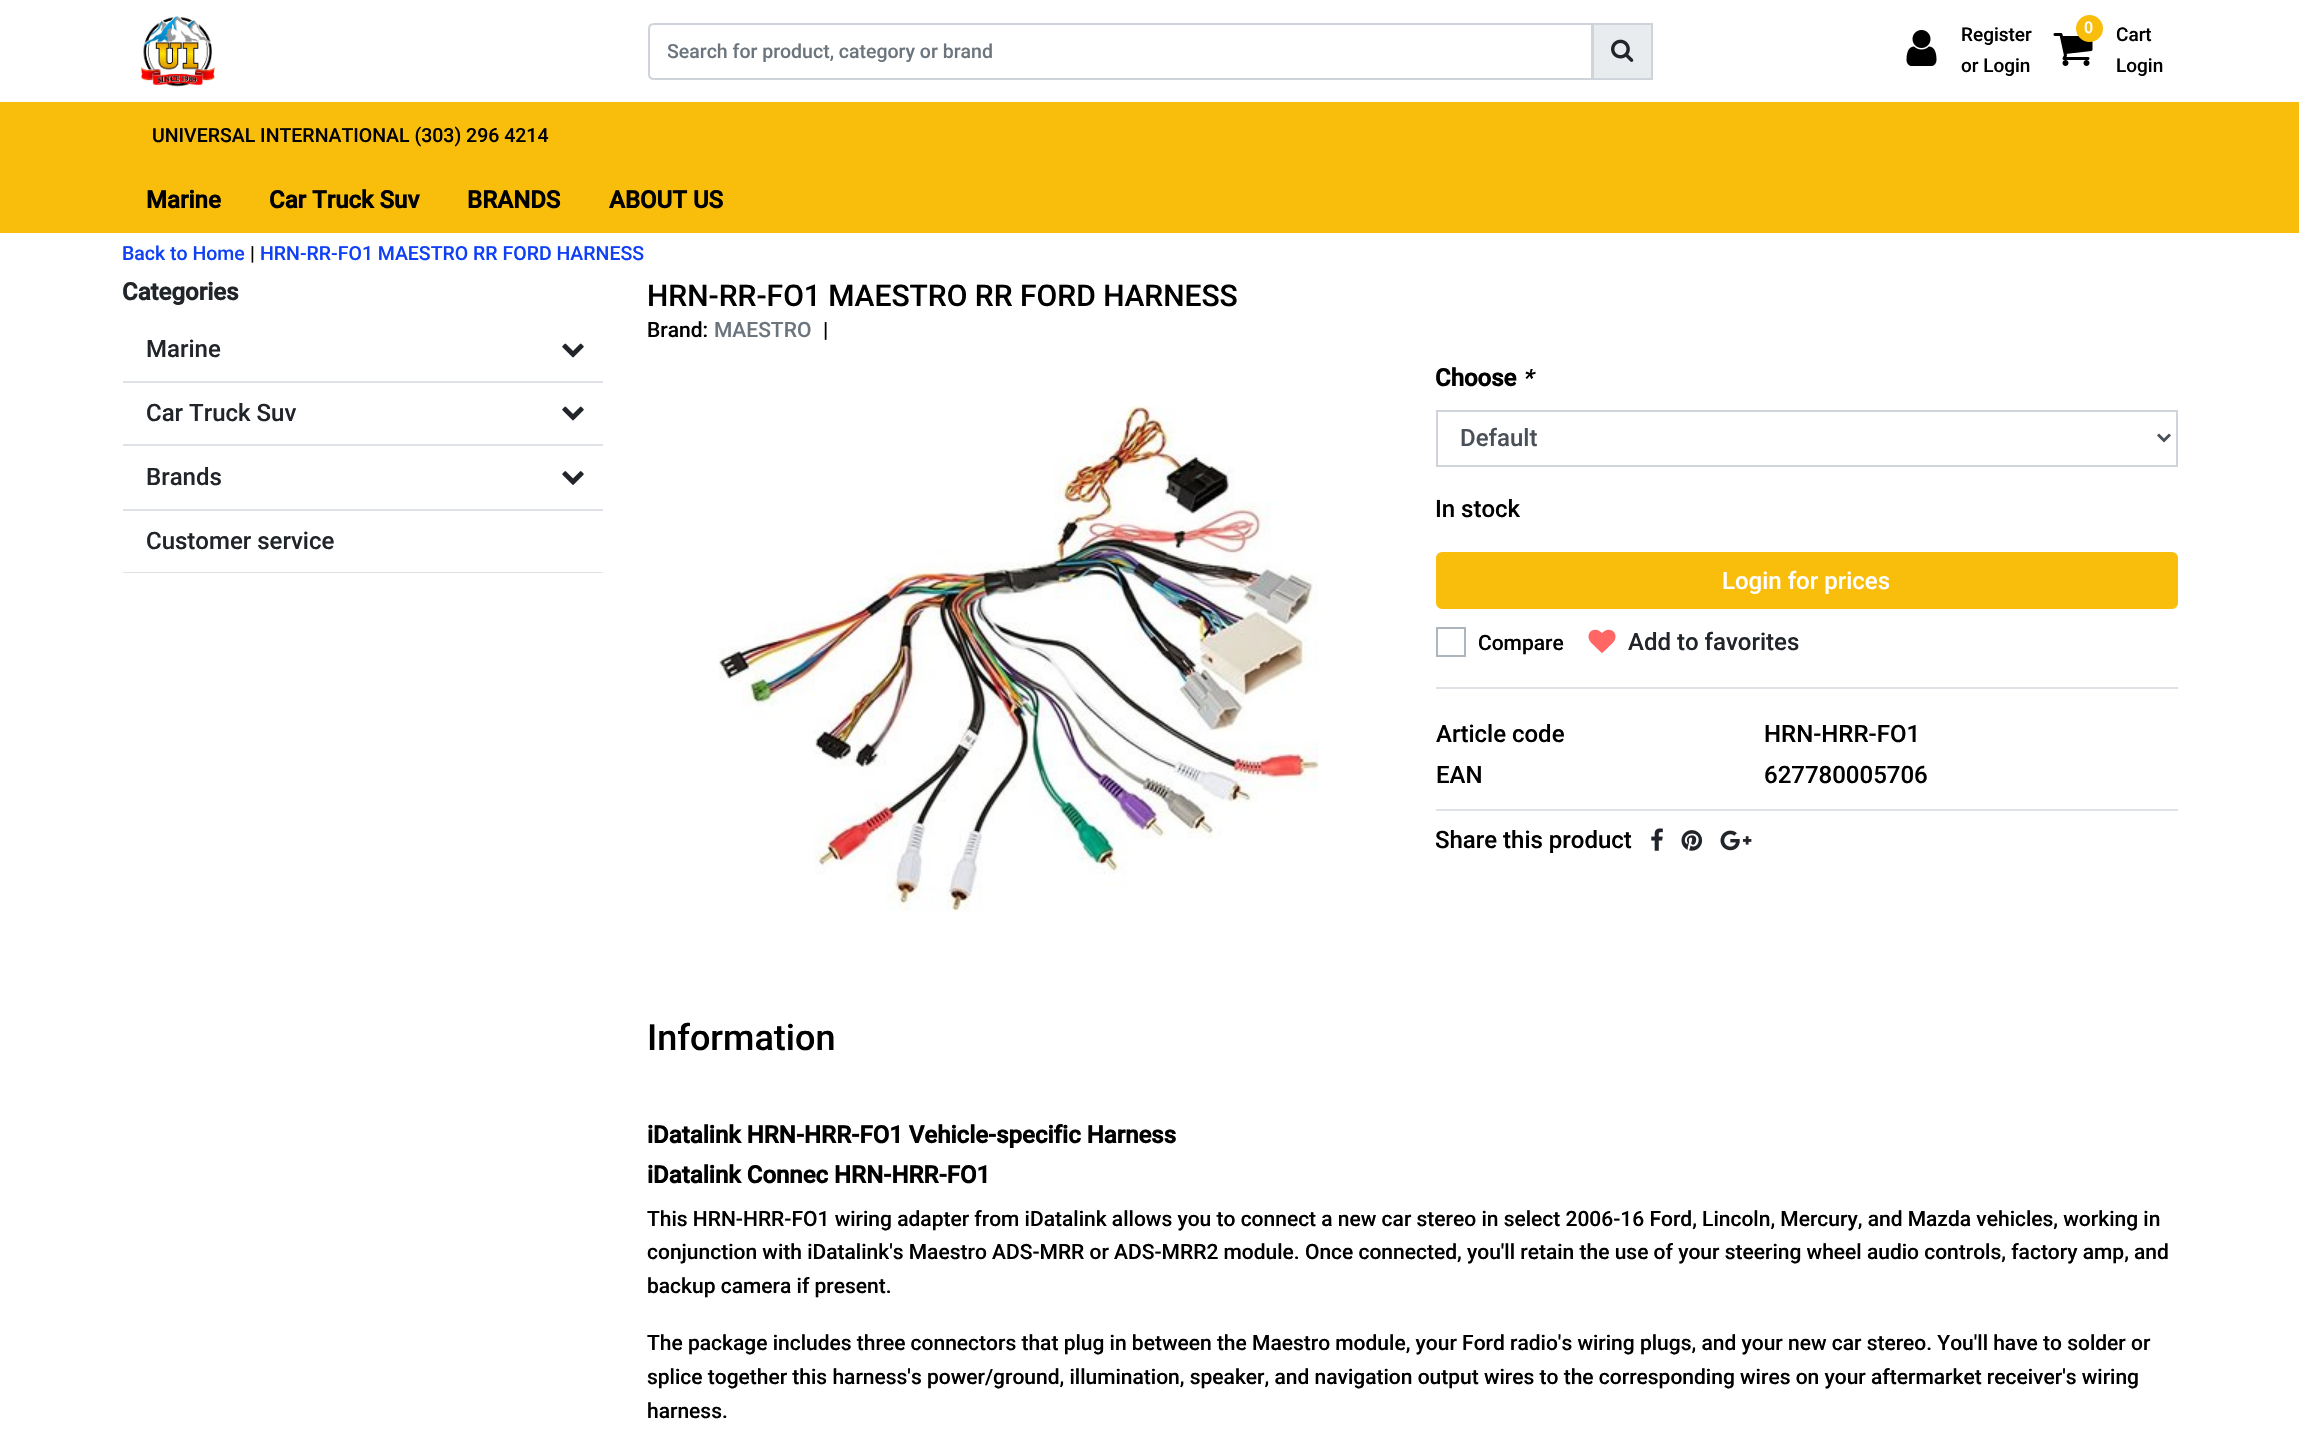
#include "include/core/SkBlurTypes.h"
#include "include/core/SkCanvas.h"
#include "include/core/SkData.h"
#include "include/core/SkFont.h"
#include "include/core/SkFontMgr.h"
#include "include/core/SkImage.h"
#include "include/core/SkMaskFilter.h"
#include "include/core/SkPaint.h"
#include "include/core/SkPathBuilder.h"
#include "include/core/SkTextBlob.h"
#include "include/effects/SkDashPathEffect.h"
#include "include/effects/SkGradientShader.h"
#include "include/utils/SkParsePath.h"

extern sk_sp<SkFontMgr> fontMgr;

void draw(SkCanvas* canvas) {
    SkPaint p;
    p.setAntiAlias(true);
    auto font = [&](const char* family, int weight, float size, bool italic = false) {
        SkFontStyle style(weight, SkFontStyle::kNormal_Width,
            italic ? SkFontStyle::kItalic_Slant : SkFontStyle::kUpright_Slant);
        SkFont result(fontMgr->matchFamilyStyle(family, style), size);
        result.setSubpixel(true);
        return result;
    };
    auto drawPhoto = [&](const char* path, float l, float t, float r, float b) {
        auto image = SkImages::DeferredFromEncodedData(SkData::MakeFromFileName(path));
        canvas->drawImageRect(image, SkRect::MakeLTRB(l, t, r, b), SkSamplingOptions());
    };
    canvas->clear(0xFFFFFFFF);
    drawPhoto("media/1.png", 140, 16, 215, 87);
    p.setColor(0xFFE9ECEF);
    canvas->drawRect(SkRect::MakeLTRB(1593, 24, 1652, 79), p);
    p.setStyle(SkPaint::kStroke_Style);
    p.setStrokeWidth(2);
    p.setColor(0xFFCED4DA);
    canvas->drawRect(SkRect::MakeLTRB(1593, 24, 1652, 79), p);
    canvas->drawPath(SkPathBuilder().moveTo(654, 24).lineTo(1592, 24).lineTo(1592, 79).lineTo(654, 79).cubicTo(651, 79, 649, 77, 649, 74).lineTo(649, 29).cubicTo(649, 26, 651, 24, 654, 24).close().detach(), p);
    canvas->save();
    canvas->clipRect(SkRect::MakeLTRB(668, 39, 1554, 62));
    auto font1 = font("Roboto", 500, 19.5f);
    p.setStyle(SkPaint::kFill_Style);
    p.setColor(0xFF6C757D);
    canvas->drawString("Search for product, category or brand", 667, 58, font1, p);
    canvas->restore();
    drawPhoto("media/2.png", 1611, 39, 1634, 62);
    drawPhoto("media/3.png", 1906, 30, 1937, 66);
    auto font2 = font("Roboto", 500, 19);
    p.setColor(0xFF000000);
    canvas->drawString("Register", 1961, 41, font2, p);
    canvas->drawString("or Login", 1961, 72, font2, p);
    drawPhoto("media/4.png", 2053, 33, 2093, 66);
    p.setColor(0xFFF9BD0B);
    canvas->drawCircle(2089.5f, 28.5f, 13.5f, p);
    auto font3 = font("Roboto", 500, 16);
    p.setColor(0xFFFFFFFF);
    canvas->drawString("0", 2084, 33, font3, p);
    p.setColor(0xFF000000);
    canvas->drawString("Cart", 2116, 41, font2, p);
    canvas->drawString("Login", 2116, 72, font2, p);
    p.setColor(0xFFF9BD0B);
    canvas->drawRect(SkRect::MakeLTRB(0, 102, 2299, 233), p);
    p.setColor(0xFF000000);
    canvas->drawString("UNIVERSAL INTERNATIONAL (303) 296 4214", 152, 142, font1, p);
    auto font4 = font("Roboto", 700, 24);
    {
        const struct { const char* s; float x, y; } items[] = {
            {"Marine", 146, 208},
            {"Car Truck Suv", 269, 208},
            {"BRANDS", 467, 208},
            {"ABOUT US", 609, 208},
        };
        for (auto [s, x, y] : items) {
            canvas->drawString(s, x, y, font4, p);
        }
    }
    p.setColor(0xFF0F40F5);
    canvas->drawString("Back to Home", 122, 260, font1, p);
    p.setColor(0xFF000000);
    canvas->drawString("|", 250, 260, font1, p);
    p.setColor(0xFF0F40F5);
    canvas->drawString("HRN-RR-FO1 MAESTRO RR FORD HARNESS", 260, 260, font1, p);
    p.setColor(0xFF212529);
    canvas->drawString("Categories", 122, 300, font4, p);
    p.setColor(0xFFDEE2E6);
    canvas->drawRect(SkRect::MakeLTRB(123, 381, 603, 383), p);
    auto font5 = font("Roboto", 500, 24);
    p.setColor(0xFF212529);
    canvas->drawString("Marine", 146, 357, font5, p);
    drawPhoto("media/5.png", 562, 343, 584, 358);
    p.setColor(0xFFDEE2E6);
    canvas->drawRect(SkRect::MakeLTRB(123, 444, 603, 446), p);
    p.setColor(0xFF212529);
    canvas->drawString("Car Truck Suv", 146, 421, font5, p);
    drawPhoto("media/5.png", 562, 406, 584, 421);
    p.setColor(0xFFDEE2E6);
    canvas->drawRect(SkRect::MakeLTRB(123, 509, 603, 511), p);
    p.setColor(0xFF212529);
    canvas->drawString("Brands", 146, 485, font5, p);
    drawPhoto("media/6.png", 562, 471, 584, 485);
    p.setColor(0xFFDEE2E6);
    canvas->drawRect(SkRect::MakeLTRB(123, 572, 603, 573), p);
    p.setColor(0xFF212529);
    canvas->drawString("Customer service", 146, 549, font5, p);
    auto font6 = font("Roboto", 500, 30);
    p.setColor(0xFF000000);
    canvas->drawString("HRN-RR-FO1 MAESTRO RR FORD HARNESS", 647, 306, font6, p);
    auto font7 = font("Roboto", 500, 21);
    canvas->drawString("Brand:", 647, 337, font7, p);
    p.setColor(0xFF6C757D);
    canvas->drawString("MAESTRO", 714, 337, font7, p);
    p.setColor(0xFF000000);
    canvas->drawString("|", 823, 337, font7, p);
    drawPhoto("media/7.png", 718, 405, 1319, 912);
    canvas->drawString("Choose", 1435, 386, font4, p);
    auto font8 = font("Roboto", 500, 24, true);
    canvas->drawString("*", 1522, 386, font8, p);
    p.setStyle(SkPaint::kStroke_Style);
    p.setColor(0xFFCED4DA);
    canvas->drawRect(SkRect::MakeLTRB(1437, 411, 2177, 466), p);
    p.setStrokeWidth(3);
    p.setColor(0xFF495057);
    canvas->drawPath(SkPathBuilder().moveTo(2158, 434.5f).lineTo(2164, 440.5f).lineTo(2170, 434.5f).detach(), p);
    p.setStyle(SkPaint::kFill_Style);
    canvas->drawString("Default", 1460, 446, font5, p);
    p.setColor(0xFF000000);
    canvas->drawString("In stock", 1435, 517, font5, p);
    p.setColor(0xFFF9BD0B);
    canvas->drawRoundRect(SkRect::MakeLTRB(1437, 553, 2177, 608), 5, 5, p);
    p.setStyle(SkPaint::kStroke_Style);
    p.setStrokeWidth(2);
    canvas->drawRoundRect(SkRect::MakeLTRB(1437, 553, 2177, 608), 5, 5, p);
    p.setStyle(SkPaint::kFill_Style);
    p.setColor(0xFFFFFFFF);
    canvas->drawString("Login for prices", 1722, 589, font5, p);
    p.setStyle(SkPaint::kStroke_Style);
    p.setColor(0xFFADB5BD);
    canvas->drawRect(SkRect::MakeLTRB(1437, 628, 1465, 656), p);
    p.setStyle(SkPaint::kFill_Style);
    p.setColor(0xFF000000);
    canvas->drawString("Compare", 1478, 650, font7, p);
    drawPhoto("media/8.png", 1588, 629, 1616, 653);
    p.setColor(0xFF212529);
    canvas->drawString("Add to favorites", 1628, 650, font5, p);
    p.setColor(0xFFDEE2E6);
    canvas->drawRect(SkRect::MakeLTRB(1436, 687, 2178, 689), p);
    p.setColor(0xFF000000);
    {
        const struct { const char* s; float x, y; } items[] = {
            {"Article code", 1436, 742},
            {"HRN-HRR-FO1", 1764, 742},
            {"EAN", 1436, 783},
            {"627780005706", 1764, 783},
        };
        for (auto [s, x, y] : items) {
            canvas->drawString(s, x, y, font5, p);
        }
    }
    p.setColor(0xFFDEE2E6);
    canvas->drawRect(SkRect::MakeLTRB(1436, 809, 2178, 811), p);
    p.setColor(0xFF000000);
    canvas->drawString("Share this product", 1435, 848, font5, p);
    drawPhoto("media/9.png", 1651, 828, 1663, 851);
    drawPhoto("media/10.png", 1681, 830, 1703, 851);
    drawPhoto("media/11.png", 1720, 830, 1752, 851);
    auto font9 = font("Roboto", 500, 36);
    canvas->drawString("Information", 647, 1050, font9, p);
    canvas->drawString("iDatalink HRN-HRR-FO1 Vehicle-specific Harness", 647, 1143, font4, p);
    canvas->drawString("iDatalink Connec HRN-HRR-FO1", 647, 1183, font4, p);
    {
        const struct { const char* s; float x, y; } items[] = {
            {"This HRN-HRR-FO1 wiring adapter from iDatalink allows you to connect a new car stereo in select 2006-16 Ford, Lincoln, Mercury, and Mazda vehicles, working in", 647, 1226},
            {"conjunction with iDatalink's Maestro ADS-MRR or ADS-MRR2 module. Once connected, you'll retain the use of your steering wheel audio controls, factory amp, and", 647, 1259},
            {"backup camera if present.", 647, 1293},
            {"The package includes three connectors that plug in between the Maestro module, your Ford radio's wiring plugs, and your new car stereo. You'll have to solder or", 647, 1350},
            {"splice together this harness's power/ground, illumination, speaker, and navigation output wires to the corresponding wires on your aftermarket receiver's wiring", 647, 1384},
            {"harness.", 647, 1418},
        };
        for (auto [s, x, y] : items) {
            canvas->drawString(s, x, y, font7, p);
        }
    }
}
